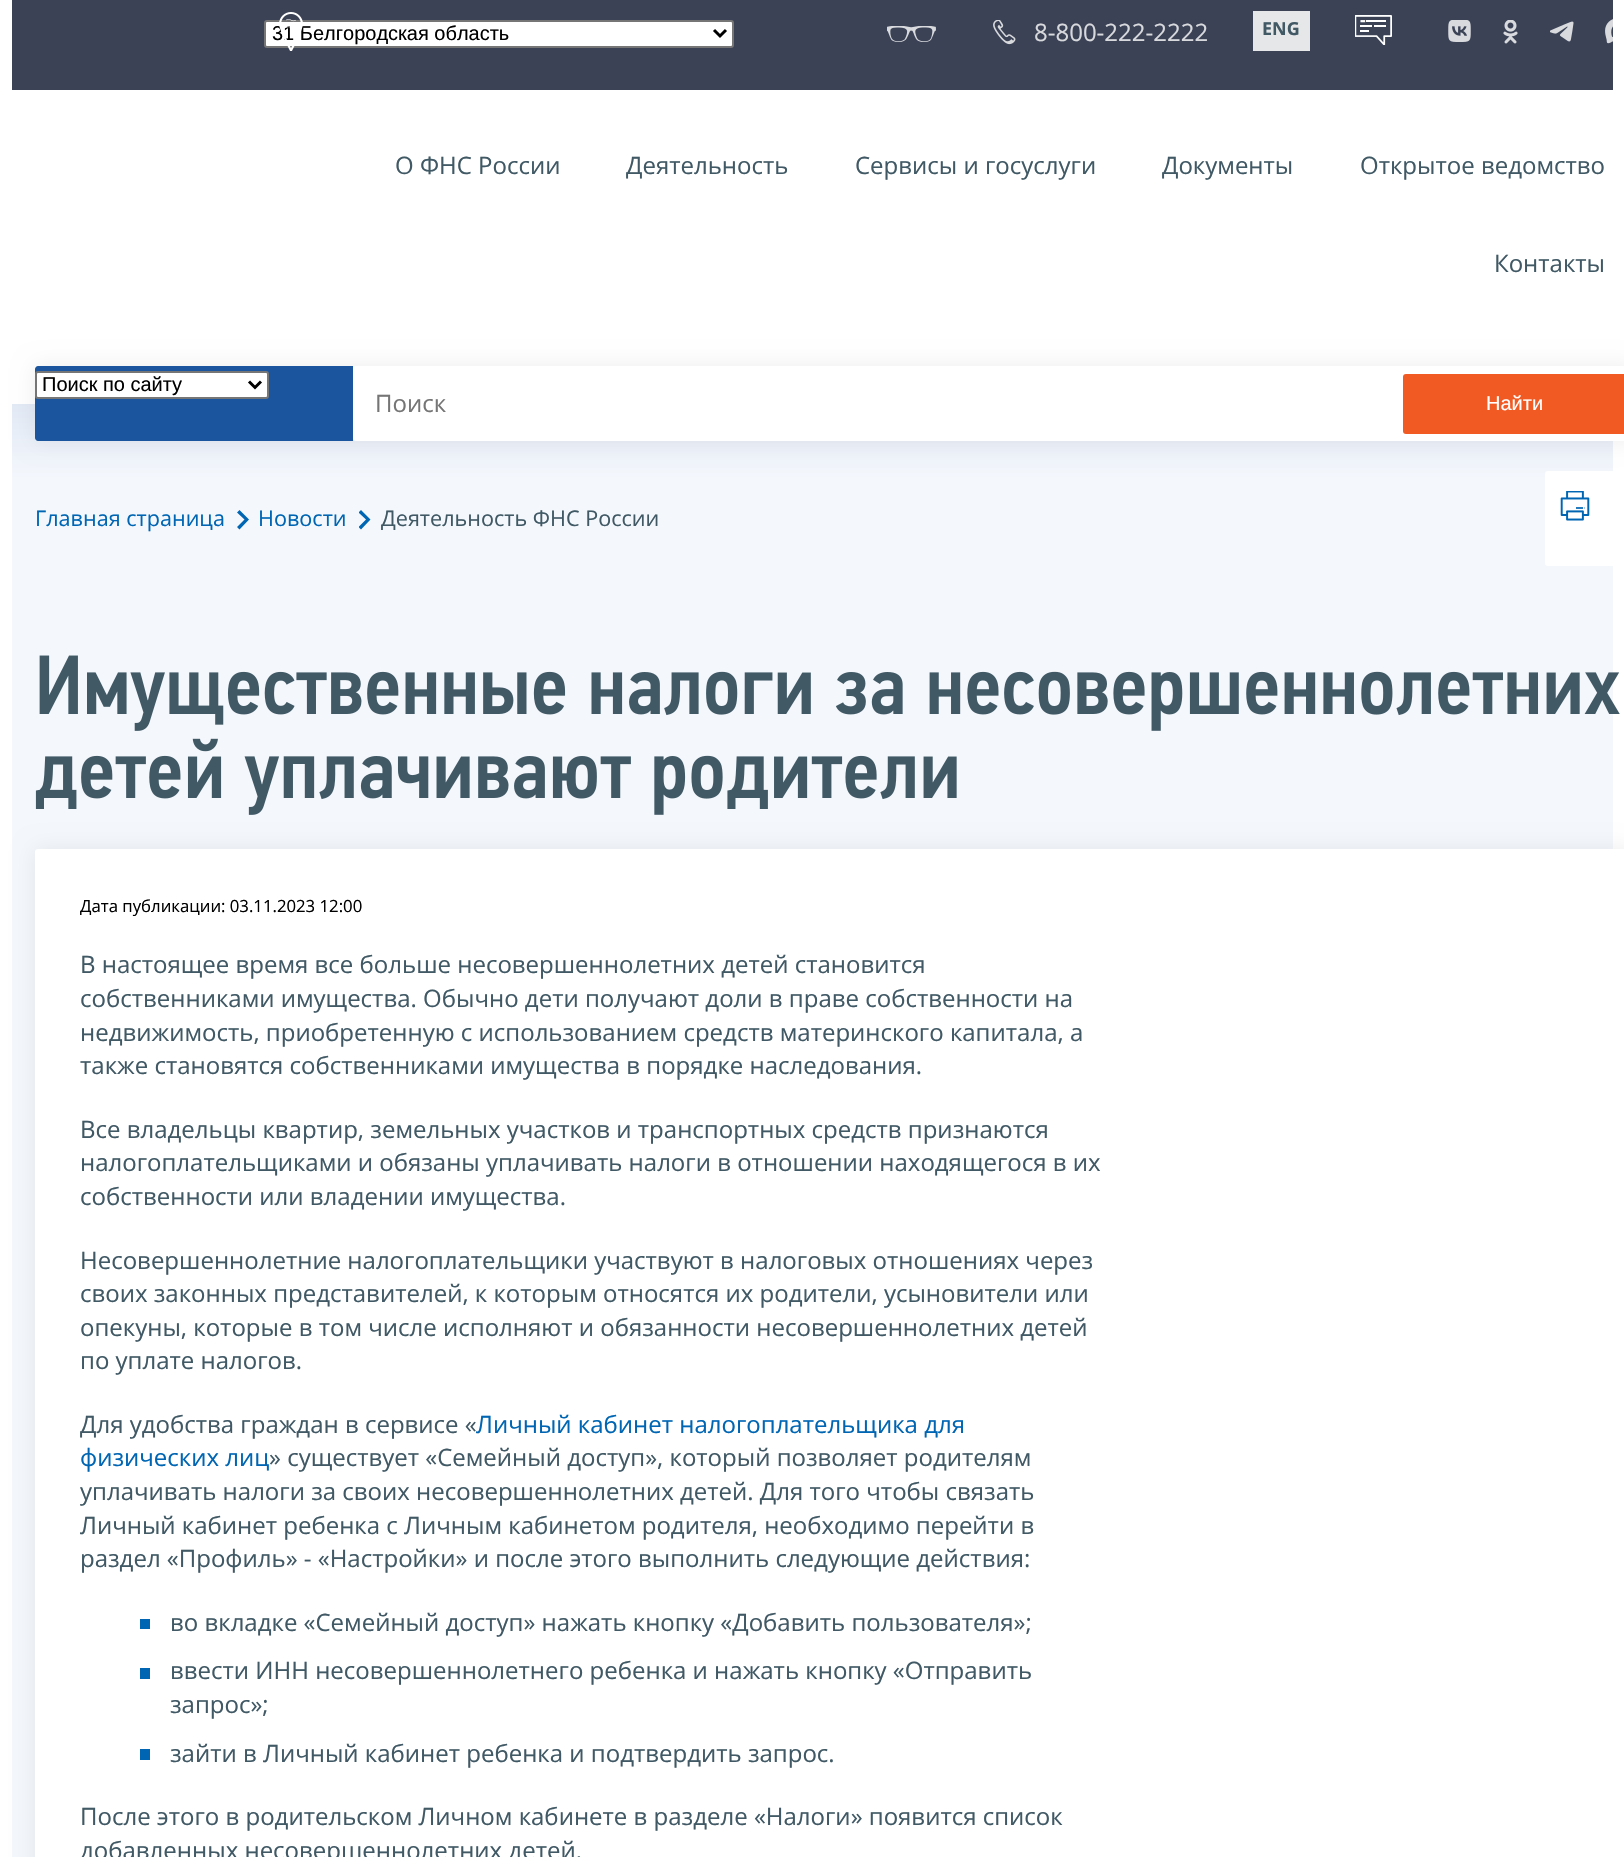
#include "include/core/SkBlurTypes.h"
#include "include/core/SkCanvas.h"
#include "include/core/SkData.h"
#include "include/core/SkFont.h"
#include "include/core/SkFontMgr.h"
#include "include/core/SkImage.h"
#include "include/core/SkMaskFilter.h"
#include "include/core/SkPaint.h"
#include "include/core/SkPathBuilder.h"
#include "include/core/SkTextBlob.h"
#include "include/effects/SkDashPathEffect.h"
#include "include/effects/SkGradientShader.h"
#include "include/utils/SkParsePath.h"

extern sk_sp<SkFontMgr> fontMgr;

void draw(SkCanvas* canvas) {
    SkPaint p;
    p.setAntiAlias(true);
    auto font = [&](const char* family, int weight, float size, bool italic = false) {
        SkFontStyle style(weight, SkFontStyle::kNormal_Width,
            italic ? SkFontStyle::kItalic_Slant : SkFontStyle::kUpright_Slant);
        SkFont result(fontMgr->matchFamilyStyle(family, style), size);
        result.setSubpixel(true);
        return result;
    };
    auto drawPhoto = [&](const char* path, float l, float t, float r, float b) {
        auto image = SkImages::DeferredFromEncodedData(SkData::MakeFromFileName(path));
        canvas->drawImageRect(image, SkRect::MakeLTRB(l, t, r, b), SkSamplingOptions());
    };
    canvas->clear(0xFFFFFFFF);
    p.setColor(0xFF3B4256);
    canvas->drawRect(SkRect::MakeLTRB(12, 0, 1613, 90), p);
    p.setColor(0xFFFFFFFF);
    canvas->drawRoundRect(SkRect::MakeLTRB(265, 21, 733, 47), 2, 2, p);
    p.setStyle(SkPaint::kStroke_Style);
    p.setStrokeWidth(2);
    p.setColor(0xFF767676);
    canvas->drawRoundRect(SkRect::MakeLTRB(265, 21, 733, 47), 2, 2, p);
    auto font1 = font("Liberation Sans", 400, 20);
    p.setStyle(SkPaint::kFill_Style);
    p.setColor(0xFF000000);
    canvas->drawString("31 Белгородская область", 272, 40, font1, p);
    drawPhoto("media/1.png", 279, 12, 303, 51);
    p.setStyle(SkPaint::kStroke_Style);
    p.setStrokeWidth(3);
    canvas->drawPath(SkPathBuilder().moveTo(714, 30).lineTo(720, 36).lineTo(726, 30).detach(), p);
    drawPhoto("media/2.png", 887, 26, 936, 42);
    drawPhoto("media/3.png", 993, 20, 1016, 45);
    auto font2 = font("Open Sans", 400, 24);
    p.setStyle(SkPaint::kFill_Style);
    p.setColor(0xFFD8D9DD);
    canvas->drawString("8-800-222-2222", 1034, 41, font2, p);
    p.setColor(0xFFE6E7E8);
    canvas->drawRect(SkRect::MakeLTRB(1253, 11, 1310, 51), p);
    auto font3 = font("Open Sans", 700, 18);
    p.setColor(0xFF405965);
    canvas->drawString("ENG", 1262, 35, font3, p);
    drawPhoto("media/4.png", 1355, 15, 1392, 45);
    drawPhoto("media/5.png", 1448, 20, 1471, 42);
    drawPhoto("media/6.png", 1503, 20, 1518, 44);
    drawPhoto("media/7.png", 1550, 21, 1574, 42);
    drawPhoto("media/8.png", 1605, 19, 1613, 44);
    {
        const struct { const char* s; float x, y; } items[] = {
            {"О ФНС России", 395, 174},
            {"Деятельность", 626, 174},
            {"Сервисы и госуслуги", 855, 174},
            {"Документы", 1162, 174},
            {"Открытое ведомство", 1360, 174},
            {"Контакты", 1494, 272},
        };
        for (auto [s, x, y] : items) {
            canvas->drawString(s, x, y, font2, p);
        }
    }
    {
        const SkColor colors[] = {0xFFE2EAF6, 0xFFF4F7FC};
        const float stops[] = {0, 1};
        const SkPoint ends[] = {{812, 403}, {812, 479}};
        p.setShader(SkGradientShader::MakeLinear(ends, colors, stops, 2, SkTileMode::kClamp));
        p.setAlpha(255);
    }
    canvas->drawRect(SkRect::MakeLTRB(12, 404, 1613, 479), p);
    p.setShader(nullptr);
    p.setColor(0xFFF4F7FC);
    canvas->drawRect(SkRect::MakeLTRB(12, 479, 1613, 1857), p);
    p.setColor(0xFFFFFFFF);
    canvas->drawRoundRect(SkRect::MakeLTRB(1545, 471, 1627, 566), 3, 3, p);
    p.setColor(0x12000000);
    p.setMaskFilter(SkMaskFilter::MakeBlur(kNormal_SkBlurStyle, 11));
    canvas->drawRoundRect(SkRect::MakeLTRB(35, 366, 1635, 441), 3, 3, p);
    p.setMaskFilter(nullptr);
    p.setColor(0xFF1B559E);
    canvas->drawPath(SkPathBuilder().moveTo(38, 366).lineTo(353, 366).lineTo(353, 441).lineTo(38, 441).cubicTo(36.5f, 441, 35, 439.5f, 35, 438).lineTo(35, 369).cubicTo(35, 367.5f, 36.5f, 366, 38, 366).close().detach(), p);
    p.setColor(0xFFFFFFFF);
    canvas->drawRoundRect(SkRect::MakeLTRB(36, 372, 268, 398), 2, 2, p);
    p.setStyle(SkPaint::kStroke_Style);
    p.setStrokeWidth(2);
    p.setColor(0xFF767676);
    canvas->drawRoundRect(SkRect::MakeLTRB(36, 372, 268, 398), 2, 2, p);
    p.setStrokeWidth(3);
    p.setColor(0xFF000000);
    canvas->drawPath(SkPathBuilder().moveTo(249, 381.5f).lineTo(255, 387.5f).lineTo(261, 381.5f).detach(), p);
    p.setStyle(SkPaint::kFill_Style);
    canvas->drawString("Поиск по сайту", 42, 391, font1, p);
    p.setColor(0xFFFFFFFF);
    canvas->drawRoundRect(SkRect::MakeLTRB(353, 366, 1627, 441), 3, 3, p);
    p.setColor(0xFF757575);
    canvas->drawString("Поиск", 375, 412, font2, p);
    p.setColor(0xFFF15A22);
    canvas->drawRoundRect(SkRect::MakeLTRB(1403, 374, 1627, 434), 3, 3, p);
    p.setColor(0xFFFFFFFF);
    canvas->drawString("Найти", 1486, 410, font1, p);
    auto font4 = font("Open Sans", 400, 21.6f);
    p.setColor(0xFF0066B3);
    canvas->drawString("Главная страница", 35, 526, font4, p);
    canvas->drawPath(SkPathBuilder().moveTo(244.5f, 519.5f).lineTo(237, 527).lineTo(239.5f, 529.5f).lineTo(249, 519.5f).lineTo(239.5f, 510).lineTo(237, 512.5f).close().detach(), p);
    canvas->drawString("Новости", 258, 526, font4, p);
    canvas->save();
    canvas->clipRect(SkRect::MakeLTRB(359, 510, 371, 530));
    canvas->drawPath(SkPathBuilder().moveTo(366, 519.5f).lineTo(358.5f, 527).lineTo(361, 529.5f).lineTo(370.5f, 519.5f).lineTo(361, 510).lineTo(358.5f, 512.5f).close().detach(), p);
    canvas->restore();
    p.setColor(0xFF405965);
    canvas->drawString("Деятельность ФНС России", 381, 526, font4, p);
    drawPhoto("media/9.png", 1560, 491, 1590, 521);
    drawPhoto("media/10.png", 39, 655, 1620, 731);
    drawPhoto("media/11.png", 35, 738, 222, 809);
    drawPhoto("media/12.png", 244, 755, 957, 815);
    p.setColor(0x12000000);
    p.setMaskFilter(SkMaskFilter::MakeBlur(kNormal_SkBlurStyle, 11));
    canvas->drawRoundRect(SkRect::MakeLTRB(35, 849, 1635, 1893), 3, 3, p);
    p.setMaskFilter(nullptr);
    p.setColor(0xFFFFFFFF);
    canvas->drawRoundRect(SkRect::MakeLTRB(35, 849, 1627, 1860), 3, 3, p);
    auto font5 = font("Open Sans", 400, 16.75f);
    p.setColor(0xFF000000);
    canvas->drawString("Дата публикации: 03.11.2023 12:00", 80, 912, font5, p);
    p.setColor(0xFF405965);
    {
        const struct { const char* s; float x, y; } items[] = {
            {"В настоящее время все больше несовершеннолетних детей становится", 80, 973},
            {"собственниками имущества. Обычно дети получают доли в праве собственности на", 80, 1007},
            {"недвижимость, приобретенную с использованием средств материнского капитала, а", 80, 1041},
            {"также становятся собственниками имущества в порядке наследования.", 80, 1074},
            {"Все владельцы квартир, земельных участков и транспортных средств признаются", 80, 1138},
            {"налогоплательщиками и обязаны уплачивать налоги в отношении находящегося в их", 80, 1171},
            {"собственности или владении имущества.", 80, 1205},
            {"Несовершеннолетние налогоплательщики участвуют в налоговых отношениях через", 80, 1269},
            {"своих законных представителей, к которым относятся их родители, усыновители или", 80, 1302},
            {"опекуны, которые в том числе исполняют и обязанности несовершеннолетних детей", 80, 1336},
            {"по уплате налогов.", 80, 1369},
            {"Для удобства граждан в сервисе «", 80, 1433},
        };
        for (auto [s, x, y] : items) {
            canvas->drawString(s, x, y, font2, p);
        }
    }
    p.setColor(0xFF0066B3);
    canvas->drawString("Личный кабинет налогоплательщика для", 476, 1433, font2, p);
    canvas->drawString("физических лиц", 80, 1466, font2, p);
    p.setColor(0xFF405965);
    {
        const struct { const char* s; float x, y; } items[] = {
            {"» существует «Семейный доступ», который позволяет родителям", 269, 1466},
            {"уплачивать налоги за своих несовершеннолетних детей. Для того чтобы связать", 80, 1500},
            {"Личный кабинет ребенка с Личным кабинетом родителя, необходимо перейти в", 80, 1534},
            {"раздел «Профиль» - «Настройки» и после этого выполнить следующие действия:", 80, 1567},
        };
        for (auto [s, x, y] : items) {
            canvas->drawString(s, x, y, font2, p);
        }
    }
    p.setColor(0xFF0066B3);
    canvas->drawRect(SkRect::MakeLTRB(140, 1619, 150, 1629), p);
    p.setColor(0xFF405965);
    canvas->drawString("во вкладке «Семейный доступ» нажать кнопку «Добавить пользователя»;", 170, 1631, font2, p);
    p.setColor(0xFF0066B3);
    canvas->drawRect(SkRect::MakeLTRB(140, 1668, 150, 1679), p);
    p.setColor(0xFF405965);
    canvas->drawString("ввести ИНН несовершеннолетнего ребенка и нажать кнопку «Отправить", 170, 1679, font2, p);
    canvas->drawString("запрос»;", 170, 1713, font2, p);
    p.setColor(0xFF0066B3);
    canvas->drawRect(SkRect::MakeLTRB(140, 1749, 150, 1760), p);
    p.setColor(0xFF405965);
    {
        const struct { const char* s; float x, y; } items[] = {
            {"зайти в Личный кабинет ребенка и подтвердить запрос.", 170, 1762},
            {"После этого в родительском Личном кабинете в разделе «Налоги» появится список", 80, 1825},
            {"добавленных несовершеннолетних детей.", 80, 1859},
        };
        for (auto [s, x, y] : items) {
            canvas->drawString(s, x, y, font2, p);
        }
    }
}
